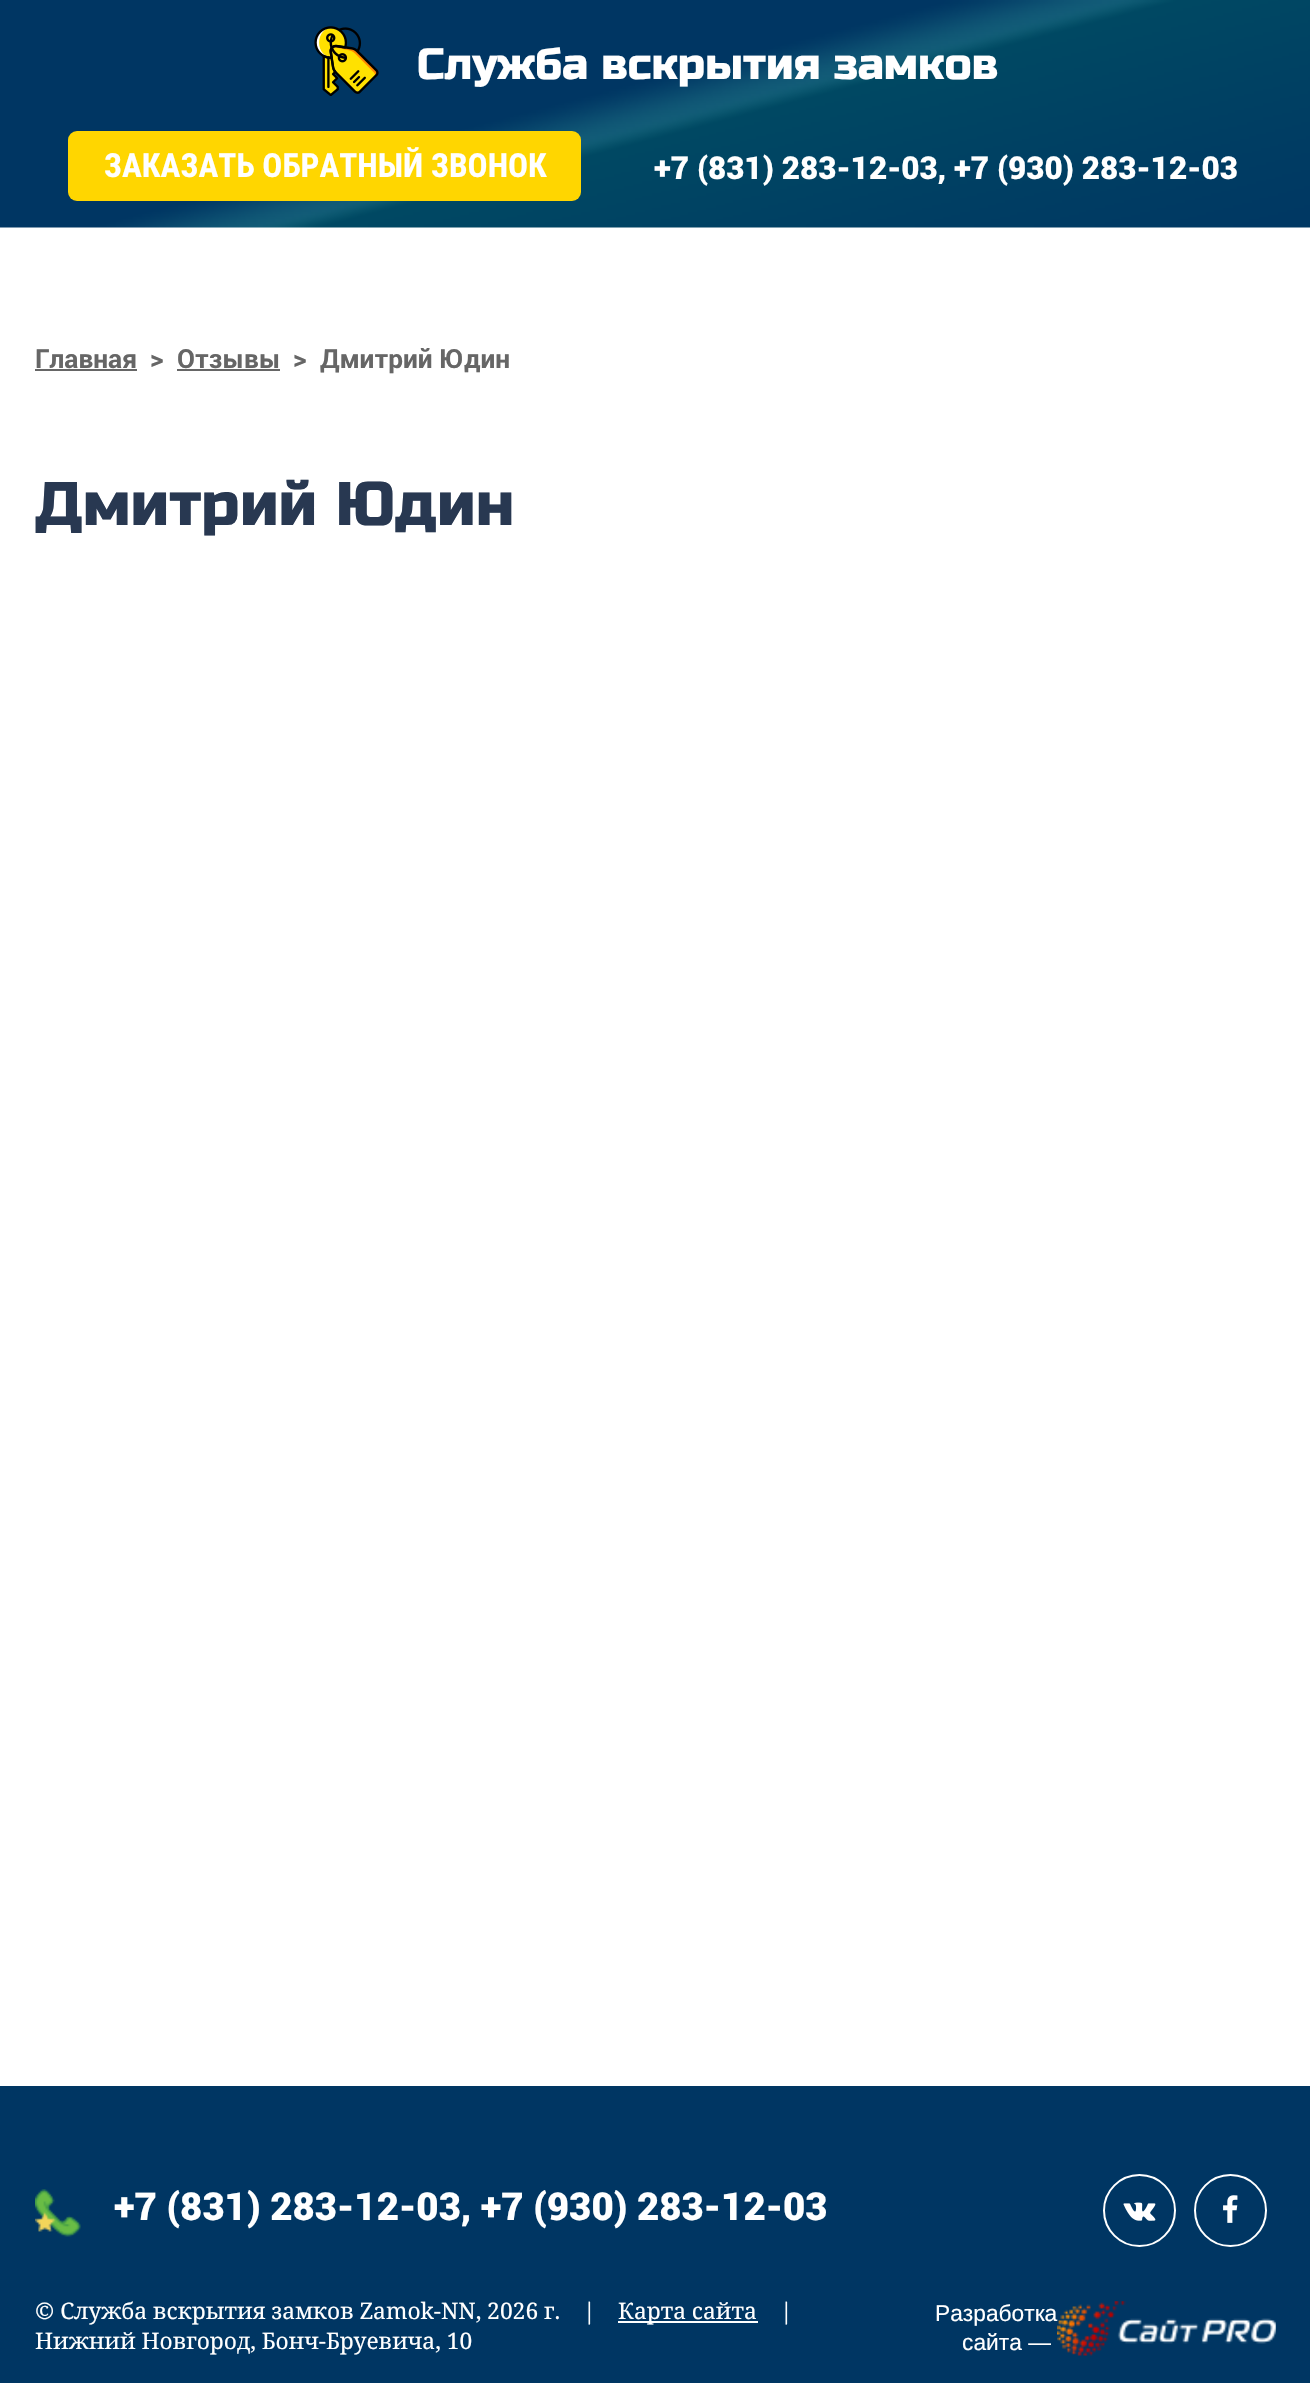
#include "include/core/SkBlurTypes.h"
#include "include/core/SkCanvas.h"
#include "include/core/SkData.h"
#include "include/core/SkFont.h"
#include "include/core/SkFontMgr.h"
#include "include/core/SkImage.h"
#include "include/core/SkMaskFilter.h"
#include "include/core/SkPaint.h"
#include "include/core/SkPathBuilder.h"
#include "include/core/SkTextBlob.h"
#include "include/effects/SkDashPathEffect.h"
#include "include/effects/SkGradientShader.h"
#include "include/utils/SkParsePath.h"

extern sk_sp<SkFontMgr> fontMgr;

void draw(SkCanvas* canvas) {
    SkPaint p;
    p.setAntiAlias(true);
    auto font = [&](const char* family, int weight, float size, bool italic = false) {
        SkFontStyle style(weight, SkFontStyle::kNormal_Width,
            italic ? SkFontStyle::kItalic_Slant : SkFontStyle::kUpright_Slant);
        SkFont result(fontMgr->matchFamilyStyle(family, style), size);
        result.setSubpixel(true);
        return result;
    };
    auto drawPhoto = [&](const char* path, float l, float t, float r, float b) {
        auto image = SkImages::DeferredFromEncodedData(SkData::MakeFromFileName(path));
        canvas->drawImageRect(image, SkRect::MakeLTRB(l, t, r, b), SkSamplingOptions());
    };
    canvas->clear(0xFFFFFFFF);
    drawPhoto("media/1.png", 0, 0, 1310, 228);
    drawPhoto("media/2.png", 314, 26, 379, 96);
    auto font1 = font("Russo One", 400, 43.75f);
    p.setColor(0xFFFFFFFF);
    canvas->drawString("Служба вскрытия замков", 417, 79, font1, p);
    p.setColor(0xFFFFD600);
    canvas->drawRoundRect(SkRect::MakeLTRB(68, 131, 581, 201), 9, 9, p);
    auto font2 = font("Roboto Condensed", 700, 33.25f);
    p.setColor(0xFFFFFFFF);
    canvas->drawString("ЗАКАЗАТЬ ОБРАТНЫЙ ЗВОНОК", 104, 177, font2, p);
    auto font3 = font("Roboto", 900, 31.5f);
    canvas->drawString("+7 (831) 283-12-03, +7 (930) 283-12-03", 654, 179, font3, p);
    auto font4 = font("Roboto", 700, 26.25f);
    p.setColor(0xFF666666);
    canvas->drawString("Главная", 35, 368, font4, p);
    canvas->drawRect(SkRect::MakeLTRB(35, 369, 137, 371), p);
    canvas->drawString(">", 150, 368, font4, p);
    canvas->drawString("Отзывы", 177, 368, font4, p);
    canvas->drawRect(SkRect::MakeLTRB(177, 369, 280, 371), p);
    canvas->drawString(">", 293, 368, font4, p);
    canvas->drawString("Дмитрий Юдин", 320, 368, font4, p);
    auto font5 = font("Russo One", 400, 61.25f);
    p.setColor(0xFF283851);
    canvas->drawString("Дмитрий Юдин", 35, 525, font5, p);
    p.setColor(0xFF003663);
    canvas->drawRect(SkRect::MakeLTRB(0, 2086, 1310, 2383), p);
    drawPhoto("media/3.png", 35, 2189, 81, 2237);
    auto font6 = font("Roboto", 900, 38.5f);
    p.setColor(0xFFFFFFFF);
    canvas->drawString("+7 (831) 283-12-03, +7 (930) 283-12-03", 114, 2220, font6, p);
    p.setStyle(SkPaint::kStroke_Style);
    p.setStrokeWidth(2);
    canvas->drawCircle(1139.5f, 2210.5f, 35.5f, p);
    drawPhoto("media/4.png", 1123, 2202, 1156, 2221);
    canvas->drawCircle(1230.5f, 2210.5f, 35.5f, p);
    drawPhoto("media/5.png", 1223, 2195, 1238, 2223);
    auto font7 = font("Noto Serif", 400, 22.75f);
    p.setStyle(SkPaint::kFill_Style);
    canvas->drawString("© Служба вскрытия замков Zamok-NN, 2026 г.", 35, 2319, font7, p);
    canvas->drawString("|", 583, 2319, font7, p);
    canvas->drawRect(SkRect::MakeLTRB(618, 2321, 758, 2323), p);
    {
        const struct { const char* s; float x, y; } items[] = {
            {"Карта сайта", 618, 2319},
            {"|", 780, 2319},
            {"Нижний Новгород, Бонч-Бруевича, 10", 35, 2349},
        };
        for (auto [s, x, y] : items) {
            canvas->drawString(s, x, y, font7, p);
        }
    }
    auto font8 = font("Liberation Sans", 400, 22.75f);
    canvas->drawString("Разработка", 935, 2321, font8, p);
    canvas->drawString("сайта —", 962, 2350, font8, p);
    drawPhoto("media/6.png", 1057, 2301, 1276, 2356);
}
